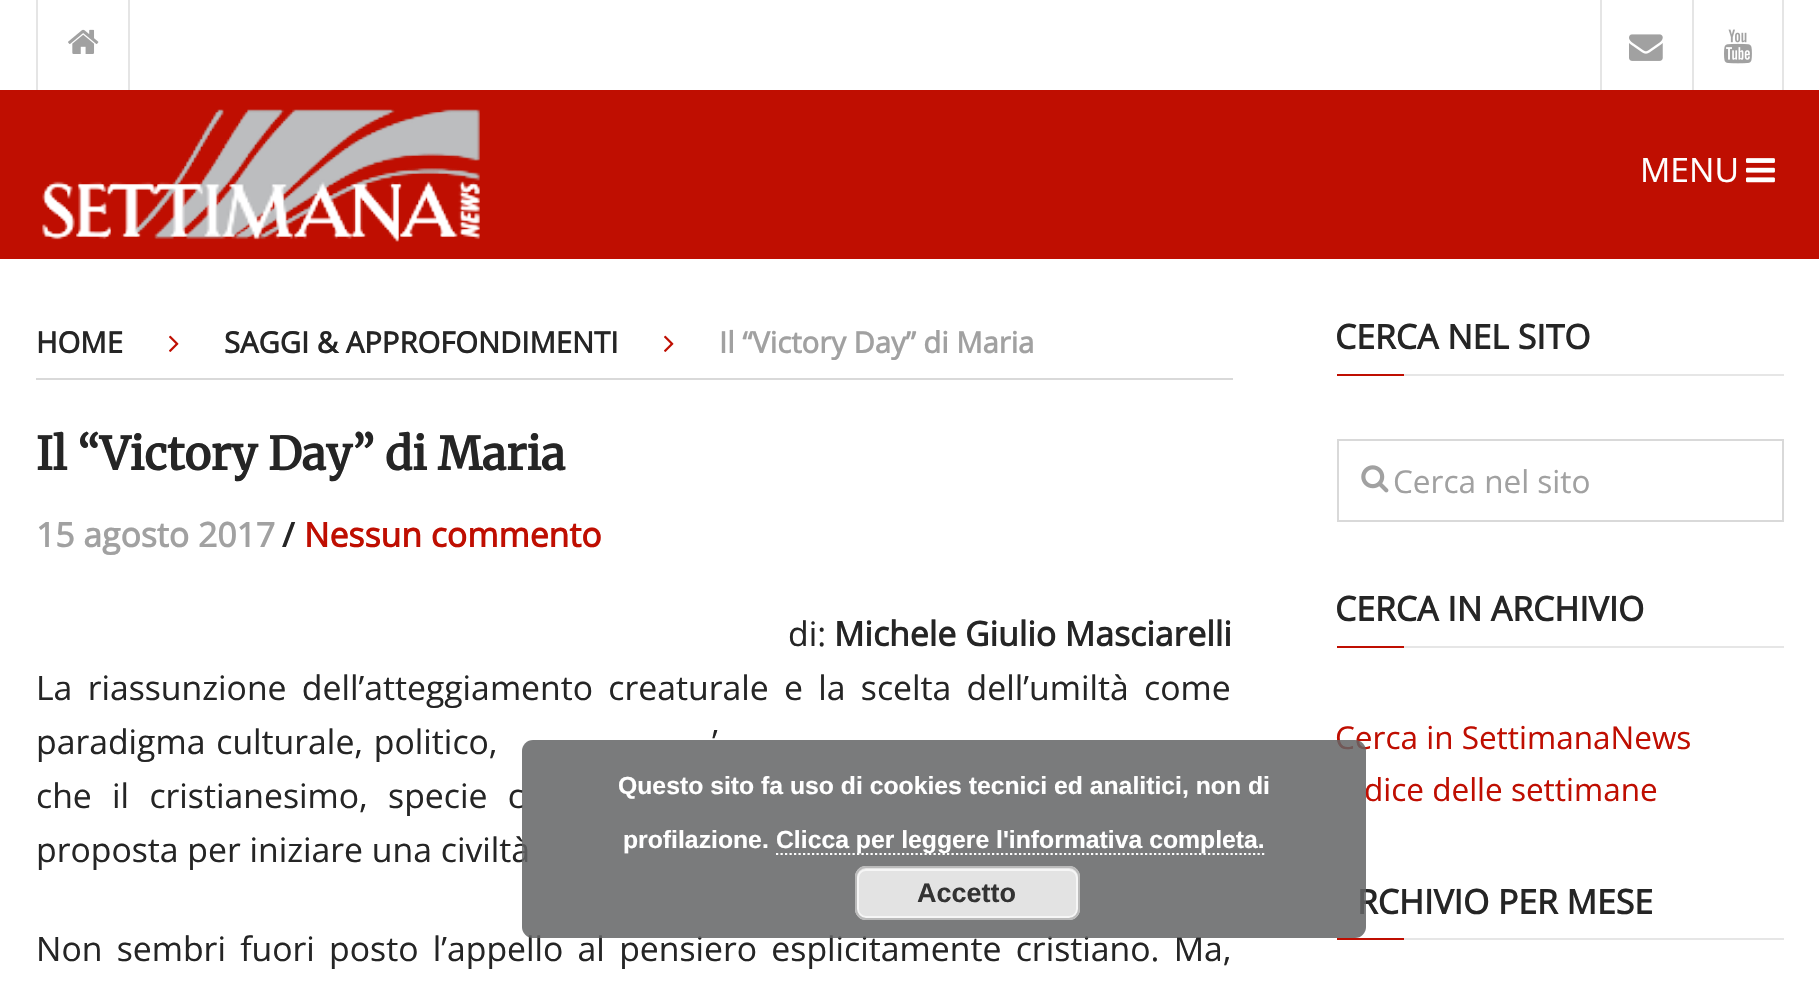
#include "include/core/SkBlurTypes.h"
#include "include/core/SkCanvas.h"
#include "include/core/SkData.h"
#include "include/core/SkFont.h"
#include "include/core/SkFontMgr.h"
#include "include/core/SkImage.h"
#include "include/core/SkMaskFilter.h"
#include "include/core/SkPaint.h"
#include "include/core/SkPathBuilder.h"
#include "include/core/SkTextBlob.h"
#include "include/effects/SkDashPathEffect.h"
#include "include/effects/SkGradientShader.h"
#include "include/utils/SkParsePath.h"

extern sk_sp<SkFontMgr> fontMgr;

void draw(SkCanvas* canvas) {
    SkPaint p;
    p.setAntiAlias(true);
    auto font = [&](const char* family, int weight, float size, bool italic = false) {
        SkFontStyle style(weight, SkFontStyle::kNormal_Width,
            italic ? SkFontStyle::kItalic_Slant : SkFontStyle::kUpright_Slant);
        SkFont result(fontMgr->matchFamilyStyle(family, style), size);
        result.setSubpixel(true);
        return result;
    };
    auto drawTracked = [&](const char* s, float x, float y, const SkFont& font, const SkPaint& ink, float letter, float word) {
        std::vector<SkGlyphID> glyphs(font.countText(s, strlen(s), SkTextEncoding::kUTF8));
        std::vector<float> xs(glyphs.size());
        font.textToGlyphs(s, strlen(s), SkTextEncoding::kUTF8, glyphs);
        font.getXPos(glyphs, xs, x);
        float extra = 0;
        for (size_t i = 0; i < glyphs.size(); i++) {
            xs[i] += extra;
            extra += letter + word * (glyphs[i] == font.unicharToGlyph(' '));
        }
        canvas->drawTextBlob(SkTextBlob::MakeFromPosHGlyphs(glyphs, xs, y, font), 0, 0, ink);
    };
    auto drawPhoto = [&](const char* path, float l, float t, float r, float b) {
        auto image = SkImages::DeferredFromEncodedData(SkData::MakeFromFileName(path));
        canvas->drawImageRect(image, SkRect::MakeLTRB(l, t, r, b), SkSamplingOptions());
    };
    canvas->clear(0xFFFFFFFF);
    p.setColor(0xFFE5E5E5);
    canvas->drawRect(SkRect::MakeLTRB(128, 0, 130, 90), p);
    canvas->drawRect(SkRect::MakeLTRB(36, 0, 38, 90), p);
    drawPhoto("media/1.png", 68, 29, 99, 54);
    canvas->drawRect(SkRect::MakeLTRB(1600, 0, 1602, 90), p);
    drawPhoto("media/2.png", 1629, 34, 1663, 61);
    canvas->drawRect(SkRect::MakeLTRB(1782, 0, 1784, 90), p);
    canvas->drawRect(SkRect::MakeLTRB(1692, 0, 1694, 90), p);
    drawPhoto("media/3.png", 1724, 29, 1752, 64);
    p.setColor(0xFFBF0E01);
    canvas->drawRect(SkRect::MakeLTRB(0, 90, 1819, 259), p);
    drawPhoto("media/4.png", 42, 109, 480, 242);
    drawPhoto("media/5.png", 42, 109, 480, 242);
    auto font1 = font("Open Sans", 400, 33.75f);
    p.setColor(0xFFFFFFFF);
    canvas->drawString("MENU", 1640, 182, font1, p);
    drawPhoto("media/6.png", 1746, 158, 1775, 183);
    p.setColor(0xFFD9D9D9);
    canvas->drawRect(SkRect::MakeLTRB(36, 378, 1233, 380), p);
    auto font2 = font("Open Sans", 700, 29.25f);
    p.setColor(0xFF252525);
    canvas->drawString("HOME", 36, 353, font2, p);
    drawPhoto("media/7.png", 169, 335, 179, 352);
    canvas->drawString("SAGGI & APPROFONDIMENTI", 224, 353, font2, p);
    drawPhoto("media/7.png", 664, 335, 674, 352);
    p.setColor(0xFFA1A1A1);
    canvas->drawString("Il “Victory Day” di Maria", 719, 353, font2, p);
    auto font3 = font("Merriweather", 700, 45);
    p.setColor(0xFF252525);
    canvas->drawString("Il “Victory Day” di Maria", 36, 470, font3, p);
    auto font4 = font("Open Sans", 700, 33.75f);
    p.setColor(0xFFA1A1A1);
    canvas->drawString("15 agosto 2017", 36, 547, font4, p);
    p.setColor(0xFF252525);
    canvas->drawString("/", 282, 547, font4, p);
    p.setColor(0xFFBF0E01);
    canvas->drawString("Nessun commento", 304, 547, font4, p);
    p.setColor(0xFF252525);
    canvas->drawString("di:", 788, 646, font1, p);
    canvas->drawString("Michele Giulio Masciarelli", 834, 646, font4, p);
    drawTracked("La riassunzione dell’atteggiamento creaturale e la scelta dell’umiltà come", 36, 700, font1, p, 0, 6.5f);
    drawTracked("paradigma culturale, politico,", 36, 754, font1, p, 0, 2);
    drawTracked("’", 712, 754, font1, p, 0, 2);
    drawTracked("che il cristianesimo, specie c", 36, 808, font1, p, 0, 11.5f);
    canvas->drawString("proposta per iniziare una civiltà", 36, 862, font1, p);
    drawTracked("Non sembri fuori posto l’appello al pensiero esplicitamente cristiano. Ma,", 36, 961, font1, p, 0, 5.5f);
    p.setColor(0xFFE6E6E6);
    canvas->drawRect(SkRect::MakeLTRB(1404, 374, 1784, 376), p);
    p.setColor(0xFF252525);
    canvas->drawString("CERCA NEL SITO", 1335, 349, font4, p);
    p.setColor(0xFFBF0E01);
    canvas->drawRect(SkRect::MakeLTRB(1337, 374, 1404, 376), p);
    p.setStyle(SkPaint::kStroke_Style);
    p.setStrokeWidth(2);
    p.setColor(0xFFD9D9D9);
    canvas->drawRect(SkRect::MakeLTRB(1338, 440, 1783, 521), p);
    drawPhoto("media/8.png", 1361, 465, 1389, 493);
    auto font5 = font("Open Sans", 400, 31.5f);
    p.setStyle(SkPaint::kFill_Style);
    p.setColor(0xFFA1A1A1);
    canvas->drawString("Cerca nel sito", 1393, 493, font5, p);
    p.setColor(0xFFE6E6E6);
    canvas->drawRect(SkRect::MakeLTRB(1404, 646, 1784, 648), p);
    p.setColor(0xFF252525);
    canvas->drawString("CERCA IN ARCHIVIO", 1335, 621, font4, p);
    p.setColor(0xFFBF0E01);
    canvas->drawRect(SkRect::MakeLTRB(1337, 646, 1404, 648), p);
    canvas->drawString("Cerca in SettimanaNews", 1335, 749, font5, p);
    canvas->drawString("dice delle settimane", 1364, 801, font5, p);
    p.setColor(0xFFE6E6E6);
    canvas->drawRect(SkRect::MakeLTRB(1404, 938, 1784, 940), p);
    p.setColor(0xFF252525);
    canvas->drawString("RCHIVIO PER MESE", 1357, 914, font4, p);
    p.setColor(0xFFBF0E01);
    canvas->drawRect(SkRect::MakeLTRB(1337, 938, 1404, 940), p);
    p.setColor(0xD9636465);
    canvas->drawRoundRect(SkRect::MakeLTRB(522, 740, 1366, 938), 11, 11, p);
    auto font6 = font("Liberation Sans", 700, 24.75f);
    p.setColor(0xFFFFFFFF);
    canvas->drawString("Questo sito fa uso di cookies tecnici ed analitici, non di", 618, 794, font6, p);
    canvas->drawString("profilazione.", 623, 848, font6, p);
    p.setStyle(SkPaint::kStroke_Style);
    p.setStrokeWidth(2.2f);
    p.setPathEffect(SkDashPathEffect::Make({{2.25f, 2.25f}}, 0));
    canvas->drawPath(SkPathBuilder().moveTo(776, 854).lineTo(1264.5f, 854).detach(), p);
    p.setPathEffect(nullptr);
    p.setStyle(SkPaint::kFill_Style);
    canvas->drawString("Clicca per leggere l'informativa completa.", 776, 848, font6, p);
    p.setColor(0xFFE3E3E3);
    canvas->drawRoundRect(SkRect::MakeLTRB(855, 866, 1080, 920), 11, 11, p);
    p.setStyle(SkPaint::kStroke_Style);
    p.setStrokeWidth(2);
    p.setColor(0xFFF6F6F6);
    canvas->drawRoundRect(SkRect::MakeLTRB(858, 870, 1077, 917), 8, 8, p);
    p.setColor(0xFFBBBBBB);
    canvas->drawRoundRect(SkRect::MakeLTRB(856, 867, 1079, 919), 10, 10, p);
    auto font7 = font("Liberation Sans", 700, 27);
    p.setStyle(SkPaint::kFill_Style);
    p.setColor(0xFF333333);
    canvas->drawString("Accetto", 917, 902, font7, p);
}
